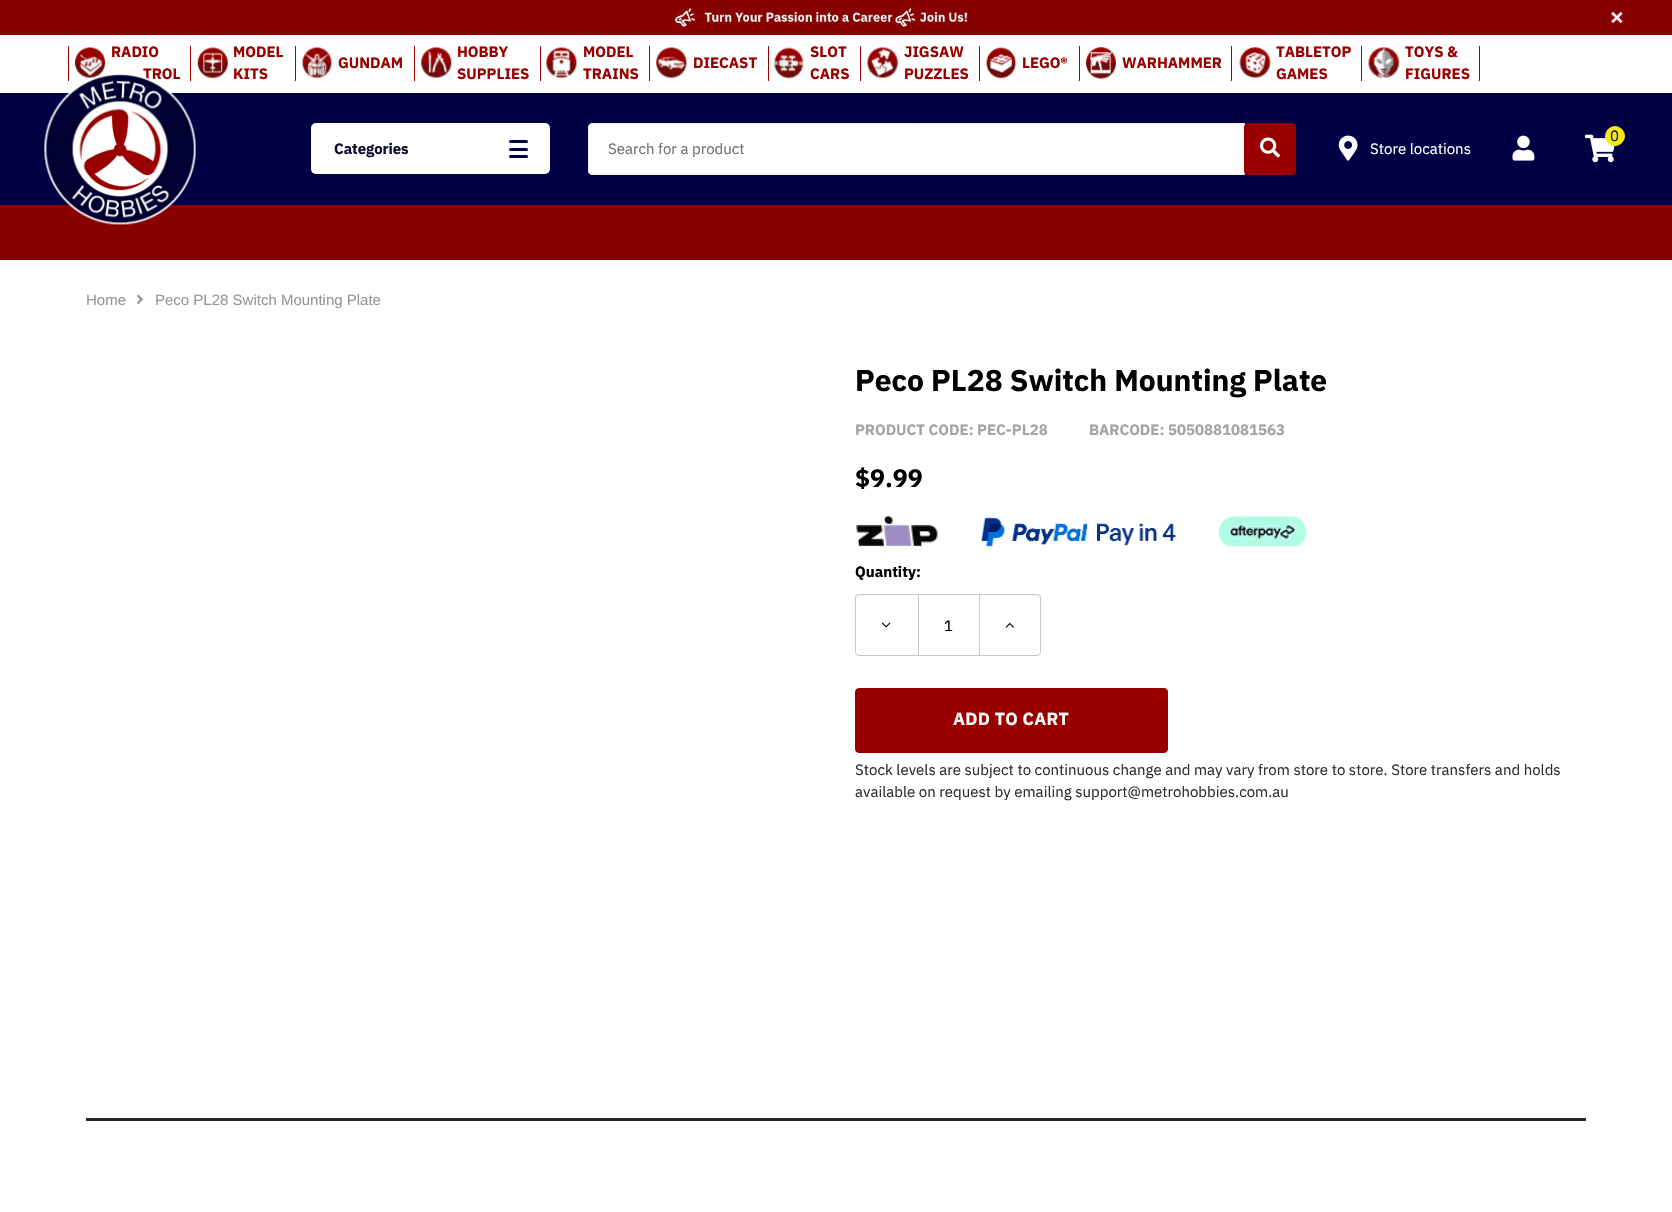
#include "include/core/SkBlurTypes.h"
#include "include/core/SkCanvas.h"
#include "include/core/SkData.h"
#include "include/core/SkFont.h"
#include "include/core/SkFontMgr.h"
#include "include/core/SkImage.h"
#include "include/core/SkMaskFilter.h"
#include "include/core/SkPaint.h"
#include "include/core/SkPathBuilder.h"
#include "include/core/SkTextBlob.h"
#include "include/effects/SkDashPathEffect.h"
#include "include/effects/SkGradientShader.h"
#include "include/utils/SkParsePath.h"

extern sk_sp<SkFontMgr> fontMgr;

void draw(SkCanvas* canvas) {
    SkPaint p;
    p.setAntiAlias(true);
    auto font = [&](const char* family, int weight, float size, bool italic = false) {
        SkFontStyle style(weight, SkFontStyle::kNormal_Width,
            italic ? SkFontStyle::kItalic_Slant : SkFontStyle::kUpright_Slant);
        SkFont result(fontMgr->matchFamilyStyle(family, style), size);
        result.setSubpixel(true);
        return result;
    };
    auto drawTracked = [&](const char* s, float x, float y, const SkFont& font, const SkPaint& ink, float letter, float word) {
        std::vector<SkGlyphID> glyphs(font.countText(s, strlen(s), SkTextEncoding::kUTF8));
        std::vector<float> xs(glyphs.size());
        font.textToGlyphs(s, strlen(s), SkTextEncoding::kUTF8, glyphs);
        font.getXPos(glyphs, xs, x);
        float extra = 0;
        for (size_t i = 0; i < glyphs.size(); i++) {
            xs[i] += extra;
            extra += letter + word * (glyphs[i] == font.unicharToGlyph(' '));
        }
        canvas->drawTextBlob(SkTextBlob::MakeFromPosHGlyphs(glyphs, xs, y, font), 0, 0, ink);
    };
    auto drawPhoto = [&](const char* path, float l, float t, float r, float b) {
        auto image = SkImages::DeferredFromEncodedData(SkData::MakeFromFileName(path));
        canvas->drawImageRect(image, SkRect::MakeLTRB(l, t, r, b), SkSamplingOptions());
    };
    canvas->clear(0xFFFFFFFF);
    drawPhoto("media/1.png", 0, 0, 1672, 35);
    drawPhoto("media/2.png", 1611, 11, 1623, 24);
    p.setColor(0xFF990000);
    canvas->drawRect(SkRect::MakeLTRB(68, 46, 69, 81), p);
    drawPhoto("media/3.png", 75, 47, 106, 78);
    auto font1 = font("IBM Plex Sans", 700, 15);
    canvas->drawString("RADIO", 111, 57, font1, p);
    canvas->drawString("TROL", 143, 79, font1, p);
    canvas->drawRect(SkRect::MakeLTRB(190, 46, 191, 81), p);
    drawPhoto("media/4.png", 197, 47, 228, 79);
    canvas->drawString("MODEL", 233, 57, font1, p);
    canvas->drawString("KITS", 233, 79, font1, p);
    canvas->drawRect(SkRect::MakeLTRB(295, 46, 296, 81), p);
    drawPhoto("media/5.png", 302, 47, 332, 79);
    canvas->drawString("GUNDAM", 338, 68, font1, p);
    canvas->drawRect(SkRect::MakeLTRB(414, 46, 415, 81), p);
    drawPhoto("media/6.png", 421, 47, 452, 78);
    canvas->drawString("HOBBY", 457, 57, font1, p);
    canvas->drawString("SUPPLIES", 457, 79, font1, p);
    canvas->drawRect(SkRect::MakeLTRB(540, 46, 541, 81), p);
    drawPhoto("media/7.png", 546, 47, 578, 79);
    canvas->drawString("MODEL", 583, 57, font1, p);
    canvas->drawString("TRAINS", 583, 79, font1, p);
    canvas->drawRect(SkRect::MakeLTRB(649, 46, 650, 81), p);
    drawPhoto("media/8.png", 656, 47, 688, 79);
    canvas->drawString("DIECAST", 693, 68, font1, p);
    canvas->drawRect(SkRect::MakeLTRB(768, 46, 769, 81), p);
    drawPhoto("media/9.png", 773, 47, 804, 79);
    canvas->drawString("SLOT", 810, 57, font1, p);
    canvas->drawString("CARS", 810, 79, font1, p);
    canvas->drawRect(SkRect::MakeLTRB(860, 46, 861, 81), p);
    drawPhoto("media/10.png", 866, 47, 898, 79);
    canvas->drawString("JIGSAW", 904, 57, font1, p);
    canvas->drawString("PUZZLES", 904, 79, font1, p);
    canvas->drawRect(SkRect::MakeLTRB(979, 46, 980, 81), p);
    drawPhoto("media/11.png", 986, 47, 1016, 79);
    canvas->drawString("LEGO®", 1022, 68, font1, p);
    canvas->drawRect(SkRect::MakeLTRB(1079, 46, 1080, 81), p);
    drawPhoto("media/12.png", 1086, 47, 1116, 80);
    canvas->drawString("WARHAMMER", 1122, 68, font1, p);
    canvas->drawRect(SkRect::MakeLTRB(1231, 46, 1232, 81), p);
    drawPhoto("media/13.png", 1239, 47, 1271, 79);
    canvas->drawString("TABLETOP", 1276, 57, font1, p);
    canvas->drawString("GAMES", 1276, 79, font1, p);
    canvas->drawRect(SkRect::MakeLTRB(1361, 46, 1362, 81), p);
    drawPhoto("media/14.png", 1368, 47, 1400, 79);
    canvas->drawString("TOYS &", 1405, 57, font1, p);
    canvas->drawString("FIGURES", 1405, 79, font1, p);
    {
        const struct { float l, t, r, b; SkColor color; } items[] = {
            {1479, 46, 1480, 81, 0xFF990000},
            {0, 93, 1672, 205, 0xFF000044},
            {0, 205, 1672, 260, 0xFF880000},
        };
        for (auto [l, t, r, b, color] : items) {
            p.setColor(color);
            canvas->drawRect(SkRect::MakeLTRB(l, t, r, b), p);
        }
    }
    drawPhoto("media/15.png", 44, 73, 196, 225);
    p.setColor(0xFFFFFFFF);
    canvas->drawRoundRect(SkRect::MakeLTRB(311, 123, 550, 174), 5, 5, p);
    p.setColor(0xFF0F0F31);
    drawTracked("Categories", 334, 154, font1, p, -0.1f, 0);
    p.setColor(0xFF000044);
    canvas->drawRoundRect(SkRect::MakeLTRB(509, 148, 528, 151), 1.5f, 1.5f, p);
    canvas->drawRoundRect(SkRect::MakeLTRB(509, 140, 528, 143), 1.5f, 1.5f, p);
    canvas->drawRoundRect(SkRect::MakeLTRB(509, 155, 528, 158), 1.5f, 1.5f, p);
    p.setColor(0xFFFFFFFF);
    canvas->drawPath(SkPathBuilder().moveTo(592, 123.5f).lineTo(1244.5f, 123.5f).lineTo(1244.5f, 174.5f).lineTo(592, 174.5f).cubicTo(590, 174.5f, 588.5f, 173, 588.5f, 171).lineTo(588.5f, 127).cubicTo(588.5f, 125, 590, 123.5f, 592, 123.5f).close().detach(), p);
    p.setStyle(SkPaint::kStroke_Style);
    p.setStrokeWidth(1);
    p.setColor(0xFFEEEEEE);
    canvas->drawPath(SkPathBuilder().moveTo(592, 123.5f).lineTo(1244.5f, 123.5f).lineTo(1244.5f, 174.5f).lineTo(592, 174.5f).cubicTo(590, 174.5f, 588.5f, 173, 588.5f, 171).lineTo(588.5f, 127).cubicTo(588.5f, 125, 590, 123.5f, 592, 123.5f).close().detach(), p);
    auto font2 = font("IBM Plex Sans", 400, 15);
    p.setStyle(SkPaint::kFill_Style);
    p.setColor(0xFF6E6E6E);
    canvas->drawString("Search for a product", 608, 154, font2, p);
    p.setColor(0xFF990000);
    canvas->drawRoundRect(SkRect::MakeLTRB(1244.5f, 123.5f, 1295.5f, 174.5f), 3.5f, 3.5f, p);
    p.setStyle(SkPaint::kStroke_Style);
    canvas->drawRoundRect(SkRect::MakeLTRB(1244.5f, 123.5f, 1295.5f, 174.5f), 3.5f, 3.5f, p);
    drawPhoto("media/16.png", 1260, 137, 1280, 158);
    drawPhoto("media/17.png", 1338, 135, 1358, 161);
    p.setStyle(SkPaint::kFill_Style);
    p.setColor(0xFFFFFFFF);
    canvas->drawString("Store locations", 1370, 154, font2, p);
    drawPhoto("media/18.png", 1512, 135, 1535, 161);
    drawPhoto("media/19.png", 1585, 134, 1615, 163);
    p.setColor(0xFFF8E71C);
    canvas->drawCircle(1615, 136, 9.5f, p);
    p.setStyle(SkPaint::kStroke_Style);
    canvas->drawCircle(1615, 136, 9.5f, p);
    p.setStyle(SkPaint::kFill_Style);
    p.setColor(0xFF0F0F31);
    canvas->drawString("0", 1610, 141, font2, p);
    auto font3 = font("Arimo", 400, 15);
    p.setColor(0xFF969696);
    canvas->drawString("Home", 86, 305, font3, p);
    drawPhoto("media/20.png", 137, 294, 143, 304);
    canvas->drawString("Peco PL28 Switch Mounting Plate", 155, 305, font3, p);
    auto font4 = font("IBM Plex Sans", 700, 30);
    p.setColor(0xFF000000);
    canvas->drawString("Peco PL28 Switch Mounting Plate", 855, 391, font4, p);
    p.setColor(0xFFA4A4A4);
    canvas->drawString("PRODUCT CODE: PEC-PL28", 855, 435, font1, p);
    canvas->drawString("BARCODE: 5050881081563", 1089, 435, font1, p);
    auto font5 = font("IBM Plex Sans", 700, 25);
    p.setColor(0xFF000000);
    canvas->drawString("$9.99", 855, 487, font5, p);
    drawPhoto("media/21.png", 856, 516, 938, 547);
    drawPhoto("media/22.png", 981, 517, 1176, 547);
    drawPhoto("media/23.png", 1218, 516, 1307, 547);
    canvas->drawString("Quantity:", 855, 577, font1, p);
    p.setStyle(SkPaint::kStroke_Style);
    p.setColor(0xFFC8C8C8);
    canvas->drawRoundRect(SkRect::MakeLTRB(855.5f, 594.5f, 1040.5f, 655.5f), 3.5f, 3.5f, p);
    drawPhoto("media/24.png", 881, 622, 891, 628);
    p.setStyle(SkPaint::kFill_Style);
    canvas->drawRect(SkRect::MakeLTRB(979, 595, 980, 655), p);
    canvas->drawRect(SkRect::MakeLTRB(918, 595, 919, 655), p);
    p.setColor(0xFF000000);
    canvas->drawString("1", 944, 631, font2, p);
    drawPhoto("media/25.png", 1005, 622, 1014, 628);
    p.setColor(0xFF990000);
    canvas->drawRoundRect(SkRect::MakeLTRB(855.5f, 688.5f, 1167.5f, 752.5f), 3.5f, 3.5f, p);
    p.setStyle(SkPaint::kStroke_Style);
    canvas->drawRoundRect(SkRect::MakeLTRB(855.5f, 688.5f, 1167.5f, 752.5f), 3.5f, 3.5f, p);
    auto font6 = font("IBM Plex Sans", 700, 17.5f);
    p.setStyle(SkPaint::kFill_Style);
    p.setColor(0xFFF9F9F9);
    drawTracked("ADD TO CART", 953, 725, font6, p, 0.3f, 0);
    p.setColor(0xFF2D2D2D);
    canvas->drawString("Stock levels are subject to continuous change and may vary from store to store. Store transfers and holds", 855, 775, font2, p);
    canvas->drawString("available on request by emailing support@metrohobbies.com.au", 855, 797, font2, p);
    p.setColor(0xFF272627);
    canvas->drawRect(SkRect::MakeLTRB(86, 1118, 1586, 1121), p);
}
